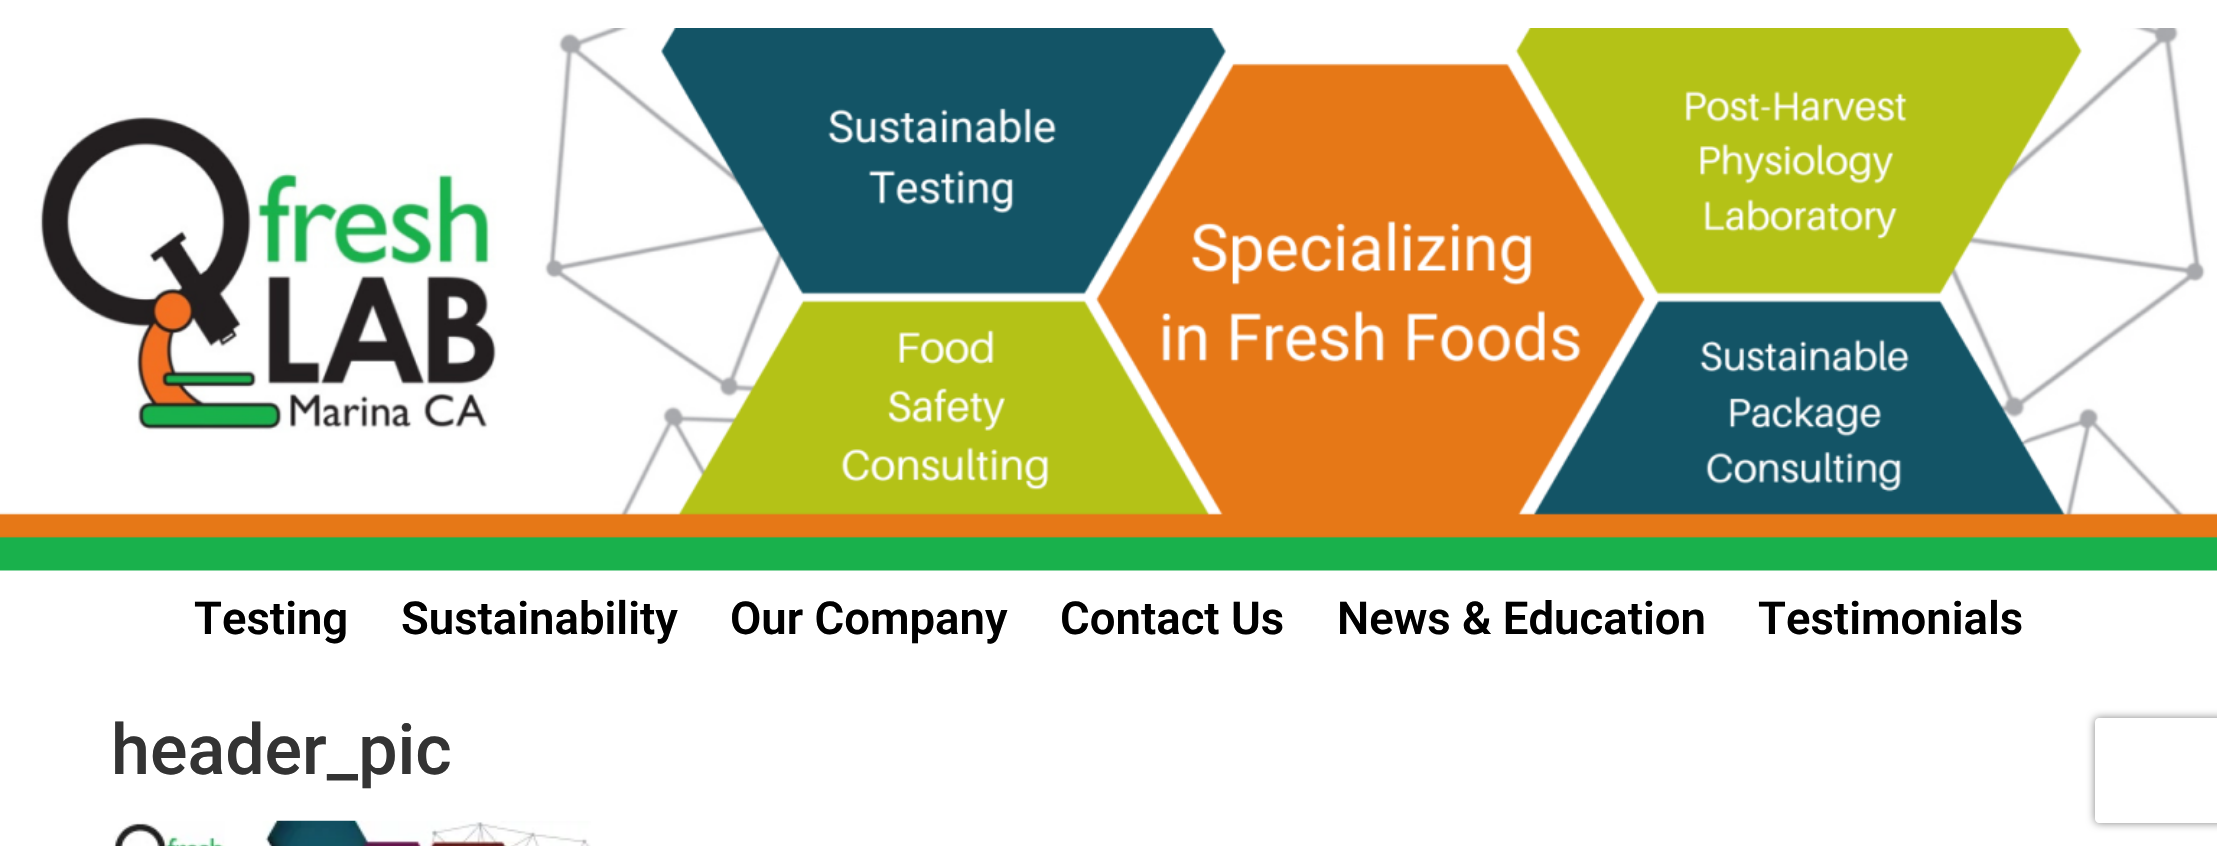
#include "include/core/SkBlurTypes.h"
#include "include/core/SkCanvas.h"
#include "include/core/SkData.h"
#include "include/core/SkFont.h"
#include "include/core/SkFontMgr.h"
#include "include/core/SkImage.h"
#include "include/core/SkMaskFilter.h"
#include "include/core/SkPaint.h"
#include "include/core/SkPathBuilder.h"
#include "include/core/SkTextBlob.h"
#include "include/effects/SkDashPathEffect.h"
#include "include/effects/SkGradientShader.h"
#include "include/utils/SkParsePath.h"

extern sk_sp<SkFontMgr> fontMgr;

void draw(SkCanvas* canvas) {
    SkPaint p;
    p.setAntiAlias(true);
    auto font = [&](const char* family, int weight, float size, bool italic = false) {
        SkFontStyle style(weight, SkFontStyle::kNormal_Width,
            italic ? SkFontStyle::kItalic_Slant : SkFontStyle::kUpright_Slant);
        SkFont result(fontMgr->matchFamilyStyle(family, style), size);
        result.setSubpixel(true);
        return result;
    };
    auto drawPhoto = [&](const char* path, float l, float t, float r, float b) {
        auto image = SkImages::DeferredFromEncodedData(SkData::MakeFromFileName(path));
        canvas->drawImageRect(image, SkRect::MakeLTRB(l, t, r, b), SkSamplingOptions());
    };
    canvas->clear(0xFFFFFFFF);
    drawPhoto("media/1.png", 0, 28, 2217, 571);
    auto font1 = font("Roboto", 600, 45.5f);
    p.setColor(0xFF000000);
    {
        const struct { const char* s; float x, y; } items[] = {
            {"Testing", 194, 634},
            {"Sustainability", 401, 634},
            {"Our Company", 730, 634},
            {"Contact Us", 1060, 634},
            {"News & Education", 1337, 634},
            {"Testimonials", 1758, 634},
        };
        for (auto [s, x, y] : items) {
            canvas->drawString(s, x, y, font1, p);
        }
    }
    auto font2 = font("Roboto", 500, 70);
    p.setColor(0xFF333333);
    canvas->drawString("header_pic", 111, 774, font2, p);
    drawPhoto("media/2.png", 113, 820, 591, 846);
    canvas->save();
    canvas->clipPath(SkPathBuilder(SkPathFillType::kEvenOdd).moveTo(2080, 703).lineTo(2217, 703).lineTo(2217, 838).lineTo(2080, 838).close().moveTo(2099, 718).lineTo(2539, 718).cubicTo(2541, 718, 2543, 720, 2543, 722).lineTo(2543, 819).cubicTo(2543, 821, 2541, 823, 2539, 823).lineTo(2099, 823).cubicTo(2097, 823, 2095, 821, 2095, 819).lineTo(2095, 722).cubicTo(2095, 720, 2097, 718, 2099, 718).close().detach(), true);
    p.setColor(0xFF808080);
    p.setMaskFilter(SkMaskFilter::MakeBlur(kNormal_SkBlurStyle, 4.5f));
    canvas->drawRoundRect(SkRect::MakeLTRB(2095, 718, 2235, 823), 4, 4, p);
    p.setMaskFilter(nullptr);
    canvas->restore();
}
